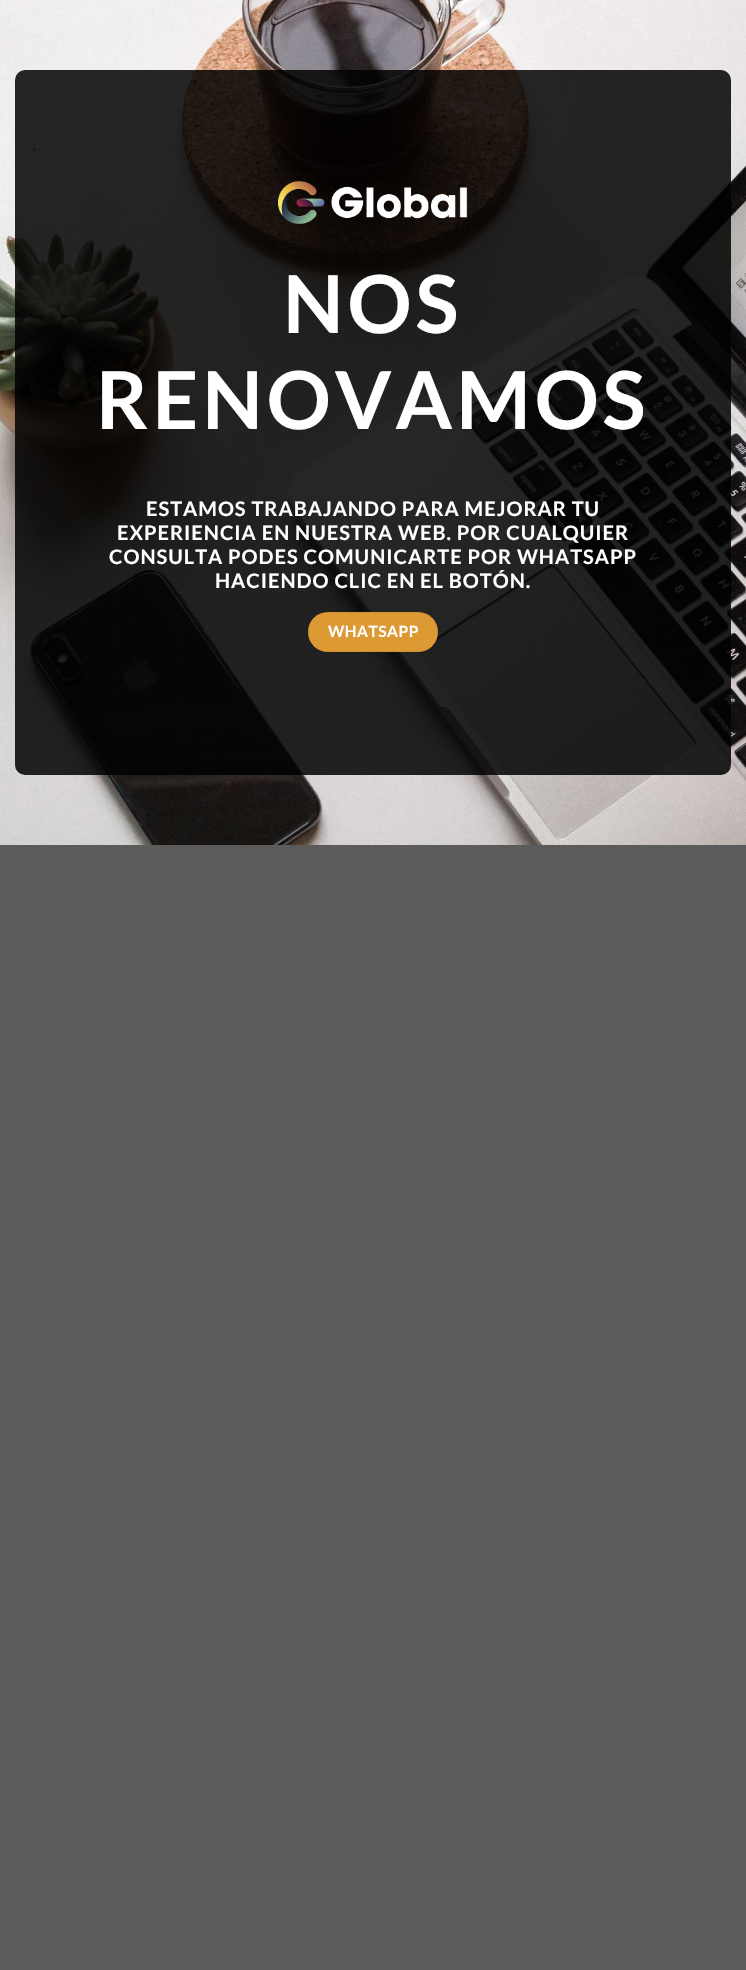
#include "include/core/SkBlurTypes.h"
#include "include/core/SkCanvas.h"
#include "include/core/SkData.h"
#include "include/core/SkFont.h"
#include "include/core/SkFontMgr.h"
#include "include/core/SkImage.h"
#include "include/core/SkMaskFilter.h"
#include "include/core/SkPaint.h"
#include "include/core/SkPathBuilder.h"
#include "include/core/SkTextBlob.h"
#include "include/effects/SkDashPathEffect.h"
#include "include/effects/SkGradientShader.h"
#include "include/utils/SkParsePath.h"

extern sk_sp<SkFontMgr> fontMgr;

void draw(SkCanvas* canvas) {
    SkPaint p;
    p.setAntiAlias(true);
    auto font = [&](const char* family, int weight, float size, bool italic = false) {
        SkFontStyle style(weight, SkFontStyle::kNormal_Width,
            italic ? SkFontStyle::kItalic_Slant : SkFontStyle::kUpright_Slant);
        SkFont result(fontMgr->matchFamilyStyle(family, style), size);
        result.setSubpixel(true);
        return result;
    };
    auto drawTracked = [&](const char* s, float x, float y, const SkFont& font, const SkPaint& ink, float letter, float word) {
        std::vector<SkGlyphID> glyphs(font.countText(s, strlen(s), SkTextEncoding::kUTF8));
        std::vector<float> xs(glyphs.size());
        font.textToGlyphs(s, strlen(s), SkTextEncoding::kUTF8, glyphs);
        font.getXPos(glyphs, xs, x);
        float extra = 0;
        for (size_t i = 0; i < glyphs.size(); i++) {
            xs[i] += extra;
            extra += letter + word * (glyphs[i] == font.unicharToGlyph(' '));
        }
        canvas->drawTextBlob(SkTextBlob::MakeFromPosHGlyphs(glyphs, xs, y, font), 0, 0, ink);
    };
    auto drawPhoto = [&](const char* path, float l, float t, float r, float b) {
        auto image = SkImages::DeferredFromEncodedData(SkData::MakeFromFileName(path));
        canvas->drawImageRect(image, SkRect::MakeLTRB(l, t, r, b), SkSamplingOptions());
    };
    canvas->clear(0xFF5B5B5B);
    drawPhoto("media/1.png", 0, 0, 746, 845);
    p.setColor(0xD9000000);
    canvas->drawRoundRect(SkRect::MakeLTRB(15, 70, 731, 775), 10, 10, p);
    drawPhoto("media/2.png", 278, 181, 468, 224);
    auto font1 = font("Lato", 700, 80);
    p.setColor(0xFFFFFFFF);
    drawTracked("NOS", 283, 333, font1, p, 4, 0);
    drawTracked("RENOVAMOS", 96, 429, font1, p, 4, 0);
    auto font2 = font("Lato", 700, 20);
    {
        const struct { const char* s; float x, y; } items[] = {
            {"ESTAMOS TRABAJANDO PARA MEJORAR TU", 146, 516},
            {"EXPERIENCIA EN NUESTRA WEB. POR CUALQUIER", 117, 540},
            {"CONSULTA PODES COMUNICARTE POR WHATSAPP", 109, 564},
            {"HACIENDO CLIC EN EL BOTÓN.", 215, 588},
        };
        for (auto [s, x, y] : items) {
            drawTracked(s, x, y, font2, p, 1, 0);
        }
    }
    p.setColor(0xFFDD9933);
    canvas->drawRoundRect(SkRect::MakeLTRB(308, 612, 438, 652), 20, 20, p);
    p.setStyle(SkPaint::kStroke_Style);
    p.setStrokeWidth(1);
    p.setColor(0x0D000000);
    canvas->drawRect(SkRect::MakeLTRB(308.5f, 612.5f, 437.5f, 651.5f), p);
    auto font3 = font("Lato", 700, 15.5f);
    p.setStyle(SkPaint::kFill_Style);
    p.setColor(0xFFFFFFFF);
    drawTracked("WHATSAPP", 328, 637, font3, p, 0.5f, 0);
}
